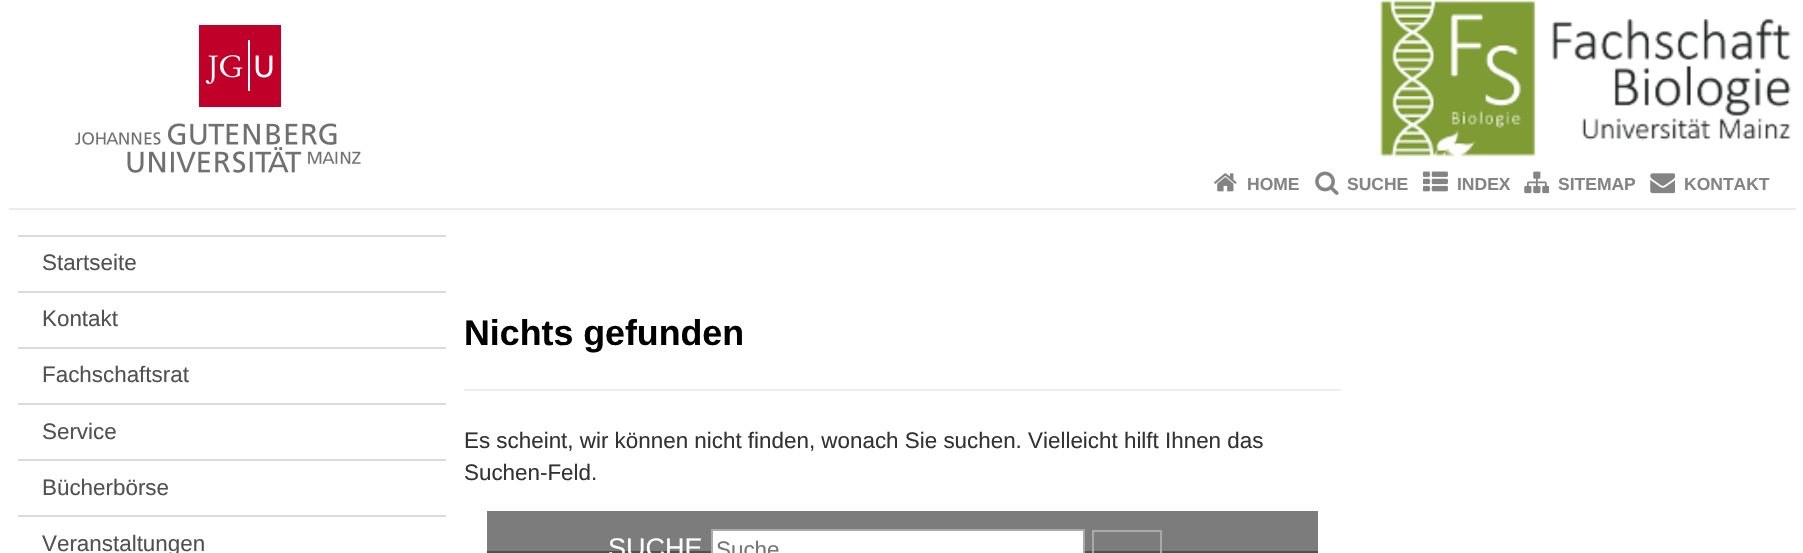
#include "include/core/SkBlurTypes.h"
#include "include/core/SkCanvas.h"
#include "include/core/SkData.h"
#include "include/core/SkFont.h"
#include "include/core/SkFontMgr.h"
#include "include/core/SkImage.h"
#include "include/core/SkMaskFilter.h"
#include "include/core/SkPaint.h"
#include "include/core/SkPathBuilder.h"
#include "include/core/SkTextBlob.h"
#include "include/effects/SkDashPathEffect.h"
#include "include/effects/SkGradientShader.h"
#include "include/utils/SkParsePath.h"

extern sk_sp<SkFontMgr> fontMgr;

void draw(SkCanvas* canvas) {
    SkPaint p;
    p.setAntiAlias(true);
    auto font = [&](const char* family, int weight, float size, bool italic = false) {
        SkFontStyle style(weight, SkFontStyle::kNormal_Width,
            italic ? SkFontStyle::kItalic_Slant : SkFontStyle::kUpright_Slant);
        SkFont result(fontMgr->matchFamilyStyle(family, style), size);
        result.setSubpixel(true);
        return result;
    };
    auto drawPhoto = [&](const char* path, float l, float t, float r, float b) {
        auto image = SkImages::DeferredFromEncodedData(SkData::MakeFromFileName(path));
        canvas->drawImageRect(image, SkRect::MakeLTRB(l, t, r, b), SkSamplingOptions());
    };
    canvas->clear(0xFFFFFFFF);
    drawPhoto("media/1.png", 75, 25, 361, 173);
    drawPhoto("media/2.png", 1380, 0, 1791, 157);
    drawPhoto("media/3.png", 1214, 173, 1237, 192);
    auto font1 = font("Liberation Sans", 700, 17.5f);
    p.setColor(0xFF848484);
    canvas->drawString("HOME", 1247, 190, font1, p);
    drawPhoto("media/4.png", 1315, 171, 1339, 195);
    canvas->drawString("SUCHE", 1347, 190, font1, p);
    drawPhoto("media/5.png", 1423, 171, 1448, 192);
    canvas->drawString("INDEX", 1457, 190, font1, p);
    drawPhoto("media/6.png", 1524, 171, 1549, 194);
    canvas->drawString("SITEMAP", 1558, 190, font1, p);
    drawPhoto("media/7.png", 1650, 173, 1675, 194);
    canvas->drawString("KONTAKT", 1684, 190, font1, p);
    p.setColor(0xFFEBEBEB);
    canvas->drawRect(SkRect::MakeLTRB(9, 208, 1796, 210), p);
    p.setColor(0xFFDADADA);
    canvas->drawRect(SkRect::MakeLTRB(18, 235, 446, 237), p);
    auto font2 = font("Liberation Sans", 400, 22.4f);
    p.setColor(0xFF515151);
    canvas->drawString("Startseite", 42, 270, font2, p);
    p.setColor(0xFFDADADA);
    canvas->drawRect(SkRect::MakeLTRB(18, 291, 446, 293), p);
    p.setColor(0xFF515151);
    canvas->drawString("Kontakt", 42, 326, font2, p);
    p.setColor(0xFFDADADA);
    canvas->drawRect(SkRect::MakeLTRB(18, 347, 446, 349), p);
    p.setColor(0xFF515151);
    canvas->drawString("Fachschaftsrat", 42, 382, font2, p);
    p.setColor(0xFFDADADA);
    canvas->drawRect(SkRect::MakeLTRB(18, 403, 446, 405), p);
    p.setColor(0xFF515151);
    canvas->drawString("Service", 42, 439, font2, p);
    p.setColor(0xFFDADADA);
    canvas->drawRect(SkRect::MakeLTRB(18, 459, 446, 461), p);
    p.setColor(0xFF515151);
    canvas->drawString("Bücherbörse", 42, 495, font2, p);
    p.setColor(0xFFDADADA);
    canvas->drawRect(SkRect::MakeLTRB(18, 515, 446, 517), p);
    p.setColor(0xFF515151);
    canvas->drawString("Veranstaltungen", 42, 551, font2, p);
    p.setColor(0xFFEEEEEE);
    canvas->drawRect(SkRect::MakeLTRB(464, 389, 1341, 391), p);
    auto font3 = font("Liberation Sans", 700, 35.75f);
    p.setColor(0xFF000000);
    canvas->drawString("Nichts gefunden", 464, 345, font3, p);
    p.setColor(0xFF333333);
    canvas->drawString("Es scheint, wir können nicht finden, wonach Sie suchen. Vielleicht hilft Ihnen das", 464, 448, font2, p);
    canvas->drawString("Suchen-Feld.", 464, 480, font2, p);
    p.setColor(0xFF7C7C7C);
    canvas->drawRect(SkRect::MakeLTRB(487, 511, 1318, 551), p);
    p.setColor(0xFF505050);
    canvas->drawRect(SkRect::MakeLTRB(487, 551, 1318, 553), p);
    auto font4 = font("Liberation Sans", 400, 27);
    p.setColor(0xFFFFFFFF);
    canvas->drawString("SUCHE", 608, 557, font4, p);
    canvas->drawRect(SkRect::MakeLTRB(712, 530, 1084, 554), p);
    p.setStyle(SkPaint::kStroke_Style);
    p.setStrokeWidth(2);
    p.setColor(0xFFAAAAAA);
    canvas->drawRect(SkRect::MakeLTRB(712, 530, 1084, 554), p);
    p.setStyle(SkPaint::kFill_Style);
    p.setColor(0xFF757575);
    canvas->drawString("Suche", 716, 557, font2, p);
    p.setStyle(SkPaint::kStroke_Style);
    p.setColor(0xFFAAAAAA);
    canvas->drawRect(SkRect::MakeLTRB(1093, 531, 1161, 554), p);
}
